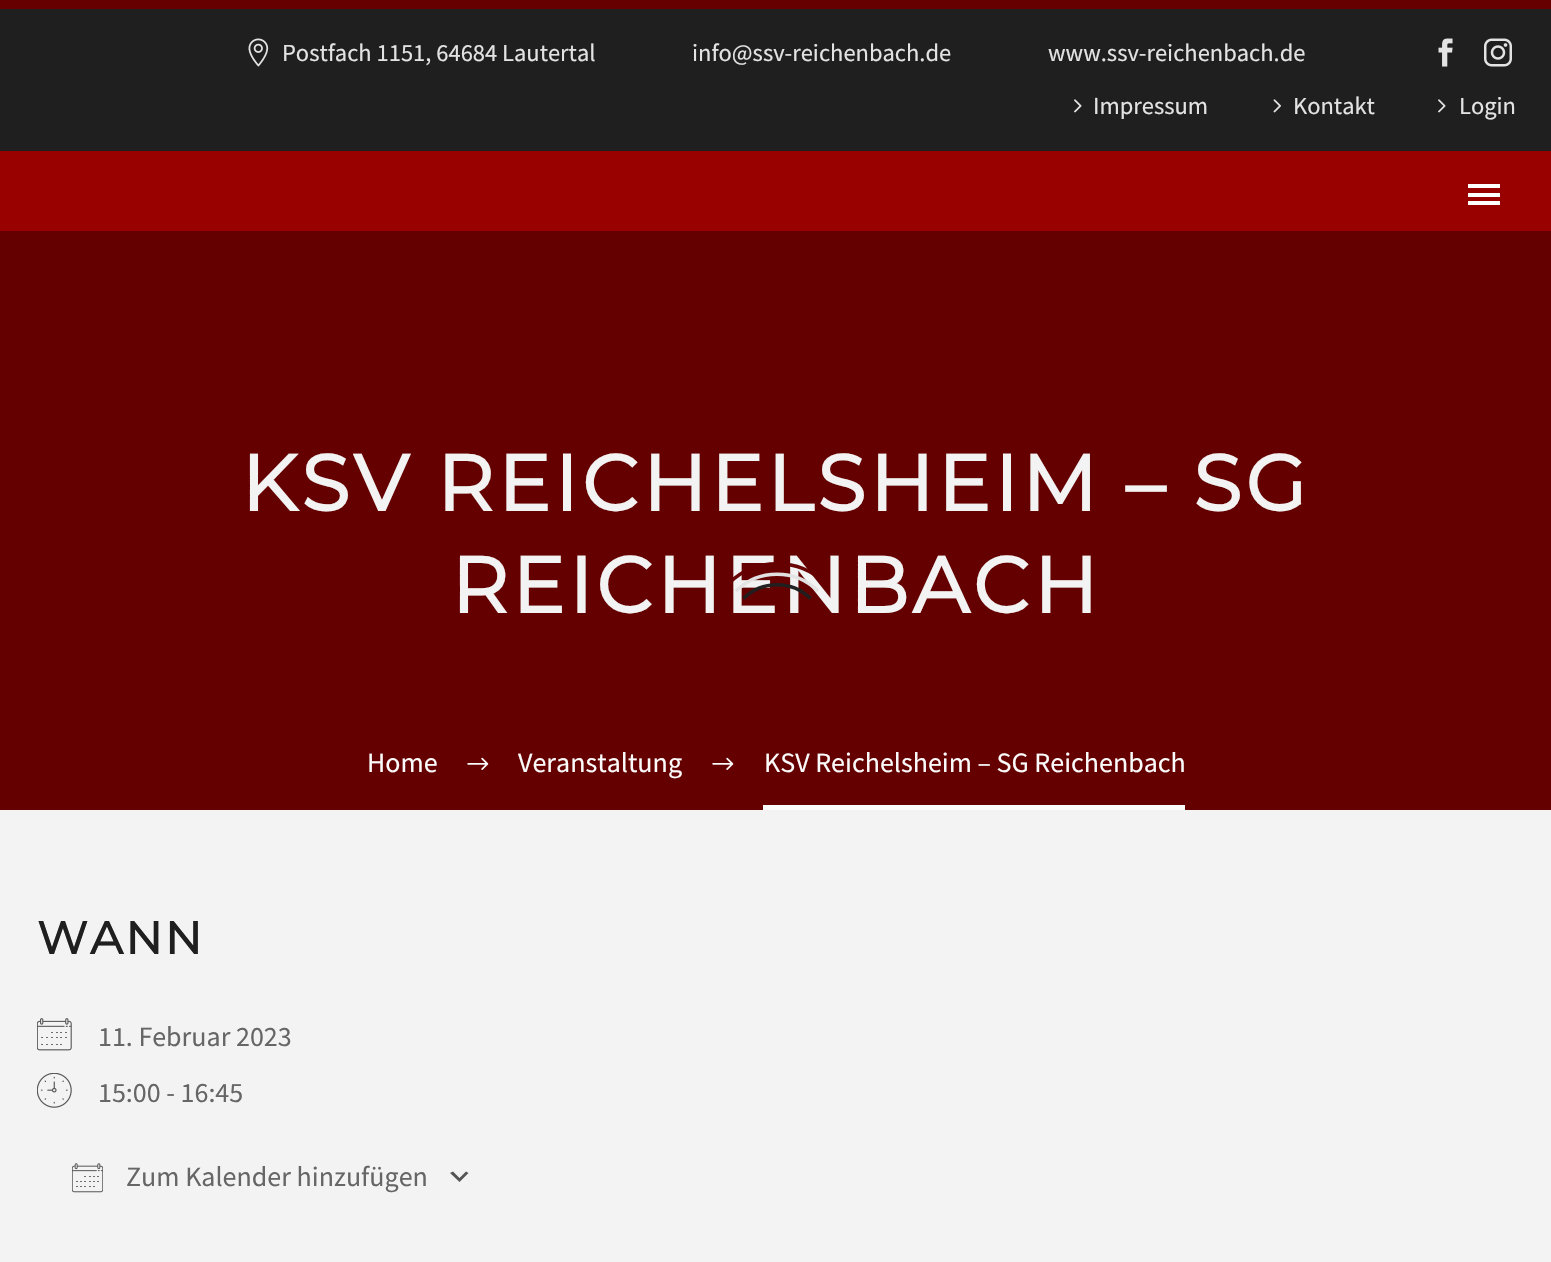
#include "include/core/SkBlurTypes.h"
#include "include/core/SkCanvas.h"
#include "include/core/SkData.h"
#include "include/core/SkFont.h"
#include "include/core/SkFontMgr.h"
#include "include/core/SkImage.h"
#include "include/core/SkMaskFilter.h"
#include "include/core/SkPaint.h"
#include "include/core/SkPathBuilder.h"
#include "include/core/SkTextBlob.h"
#include "include/effects/SkDashPathEffect.h"
#include "include/effects/SkGradientShader.h"
#include "include/utils/SkParsePath.h"

extern sk_sp<SkFontMgr> fontMgr;

void draw(SkCanvas* canvas) {
    SkPaint p;
    p.setAntiAlias(true);
    auto font = [&](const char* family, int weight, float size, bool italic = false) {
        SkFontStyle style(weight, SkFontStyle::kNormal_Width,
            italic ? SkFontStyle::kItalic_Slant : SkFontStyle::kUpright_Slant);
        SkFont result(fontMgr->matchFamilyStyle(family, style), size);
        result.setSubpixel(true);
        return result;
    };
    auto drawTracked = [&](const char* s, float x, float y, const SkFont& font, const SkPaint& ink, float letter, float word) {
        std::vector<SkGlyphID> glyphs(font.countText(s, strlen(s), SkTextEncoding::kUTF8));
        std::vector<float> xs(glyphs.size());
        font.textToGlyphs(s, strlen(s), SkTextEncoding::kUTF8, glyphs);
        font.getXPos(glyphs, xs, x);
        float extra = 0;
        for (size_t i = 0; i < glyphs.size(); i++) {
            xs[i] += extra;
            extra += letter + word * (glyphs[i] == font.unicharToGlyph(' '));
        }
        canvas->drawTextBlob(SkTextBlob::MakeFromPosHGlyphs(glyphs, xs, y, font), 0, 0, ink);
    };
    auto drawPhoto = [&](const char* path, float l, float t, float r, float b) {
        auto image = SkImages::DeferredFromEncodedData(SkData::MakeFromFileName(path));
        canvas->drawImageRect(image, SkRect::MakeLTRB(l, t, r, b), SkSamplingOptions());
    };
    canvas->clear(0xFFF3F3F3);
    {
        const struct { float l, t, r, b; SkColor color; } items[] = {
            {0, 151, 1551, 231, 0xFF990000},
            {0, 9, 1551, 151, 0xFF1F1F1F},
            {0, 0, 1551, 9, 0xFF660000},
        };
        for (auto [l, t, r, b, color] : items) {
            p.setColor(color);
            canvas->drawRect(SkRect::MakeLTRB(l, t, r, b), p);
        }
    }
    drawPhoto("media/1.png", 248, 38, 269, 67);
    auto font1 = font("Source Sans Pro", 400, 24.5f);
    p.setColor(0xFFE3E3E3);
    {
        const struct { const char* s; float x, y; } items[] = {
            {"Postfach 1151, 64684 Lautertal", 282, 61},
            {"info@ssv-reichenbach.de", 692, 61},
            {"www.ssv-reichenbach.de", 1048, 61},
        };
        for (auto [s, x, y] : items) {
            canvas->drawString(s, x, y, font1, p);
        }
    }
    drawPhoto("media/2.png", 1438, 38, 1453, 67);
    drawPhoto("media/3.png", 1484, 38, 1512, 67);
    drawPhoto("media/4.png", 1074, 99, 1082, 113);
    canvas->drawString("Impressum", 1093, 114, font1, p);
    drawPhoto("media/5.png", 1273, 99, 1281, 113);
    canvas->drawString("Kontakt", 1293, 114, font1, p);
    drawPhoto("media/4.png", 1438, 99, 1446, 113);
    canvas->drawString("Login", 1459, 114, font1, p);
    {
        const struct { float l, t, r, b; SkColor color; } items[] = {
            {1468, 184, 1500, 188, 0xFFFFFFFF},
            {1468, 193, 1500, 197, 0xFFFFFFFF},
            {1468, 201, 1500, 205, 0xFFFFFFFF},
            {0, 231, 1551, 810, 0xFF640000},
        };
        for (auto [l, t, r, b, color] : items) {
            p.setColor(color);
            canvas->drawRect(SkRect::MakeLTRB(l, t, r, b), p);
        }
    }
    auto font2 = font("Montserrat", 700, 78.75f);
    p.setColor(0xFFF3F3F3);
    drawTracked("KSV REICHELSHEIM – SG", 241, 511, font2, p, 3.9f, 0);
    drawTracked("REICHENBACH", 451, 613, font2, p, 3.9f, 0);
    auto font3 = font("Source Sans Pro", 400, 28);
    p.setColor(0xFFFBFBFB);
    canvas->drawString("Home", 367, 772, font3, p);
    drawPhoto("media/6.png", 467, 757, 489, 770);
    canvas->drawString("Veranstaltung", 518, 772, font3, p);
    drawPhoto("media/6.png", 712, 757, 734, 770);
    canvas->drawRect(SkRect::MakeLTRB(763, 805, 1185, 810), p);
    canvas->drawString("KSV Reichelsheim – SG Reichenbach", 764, 772, font3, p);
    auto font4 = font("Montserrat", 700, 45.5f);
    p.setColor(0xFF1F1F1F);
    drawTracked("WANN", 37, 954, font4, p, 2.5f, 0);
    drawPhoto("media/7.png", 37, 1018, 72, 1051);
    p.setColor(0xFF666666);
    canvas->drawString("11. Februar 2023", 98, 1046, font3, p);
    drawPhoto("media/8.png", 37, 1073, 72, 1108);
    canvas->drawString("15:00 - 16:45", 98, 1102, font3, p);
    p.setColor(0xFF555555);
    canvas->drawPath(SkPathBuilder().moveTo(453, 1171.5f).lineTo(459.5f, 1178).lineTo(466, 1171.5f).lineTo(468.5f, 1173).lineTo(459.5f, 1182).lineTo(450, 1173).close().detach(), p);
    drawPhoto("media/9.png", 72, 1163, 103, 1193);
    p.setColor(0xFF666666);
    canvas->drawString("Zum Kalender hinzufügen", 126, 1186, font3, p);
    p.setStyle(SkPaint::kStroke_Style);
    p.setStrokeWidth(3.5f);
    p.setColor(0xFA660000);
    canvas->drawPath(SkPathBuilder().moveTo(728.5f, 583.5f).cubicTo(755, 557, 799, 557, 825.5f, 583.5f).detach(), p);
    p.setColor(0xFAE3E3E3);
    canvas->drawPath(SkPathBuilder().moveTo(736, 591).cubicTo(758.5f, 568.5f, 795.5f, 568.5f, 818, 591).detach(), p);
    p.setColor(0xFA1F1F1F);
    canvas->drawPath(SkPathBuilder().moveTo(743.5f, 598.5f).cubicTo(762, 580, 792, 580, 810.5f, 598.5f).detach(), p);
}
